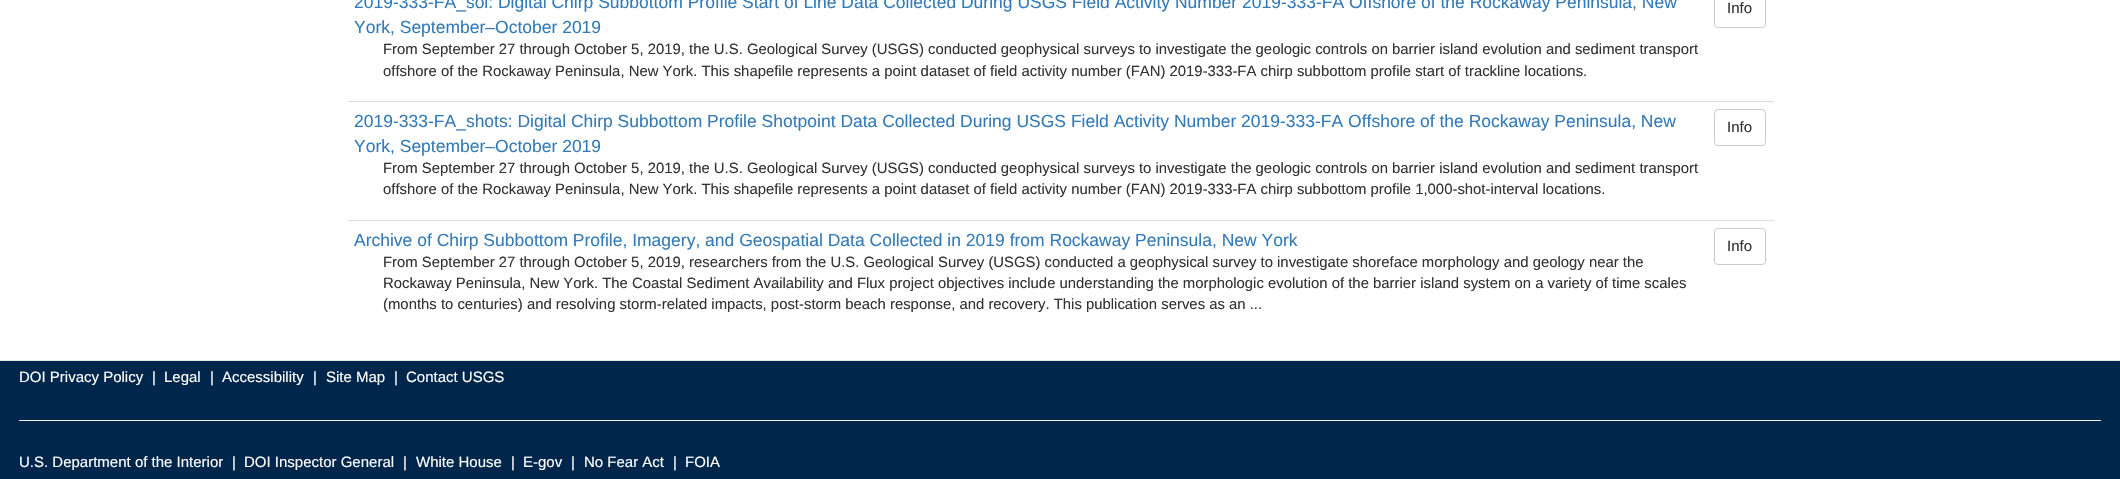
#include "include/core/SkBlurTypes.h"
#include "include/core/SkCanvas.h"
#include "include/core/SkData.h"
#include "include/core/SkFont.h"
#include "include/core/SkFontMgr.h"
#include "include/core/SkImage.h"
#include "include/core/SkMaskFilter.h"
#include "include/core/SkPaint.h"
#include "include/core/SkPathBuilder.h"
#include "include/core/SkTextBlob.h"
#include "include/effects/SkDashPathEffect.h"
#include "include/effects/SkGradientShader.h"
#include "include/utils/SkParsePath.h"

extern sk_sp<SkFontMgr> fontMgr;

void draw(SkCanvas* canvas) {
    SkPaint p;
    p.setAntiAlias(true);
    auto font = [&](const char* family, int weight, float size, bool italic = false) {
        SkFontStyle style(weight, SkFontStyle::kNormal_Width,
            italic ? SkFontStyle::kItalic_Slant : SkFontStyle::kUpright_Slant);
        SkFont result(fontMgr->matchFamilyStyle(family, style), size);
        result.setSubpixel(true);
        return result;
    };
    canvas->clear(0xFFFFFFFF);
    auto font1 = font("Liberation Sans", 400, 17.5f);
    p.setColor(0xFF337AB7);
    canvas->drawString("2019-333-FA_sol: Digital Chirp Subbottom Profile Start of Line Data Collected During USGS Field Activity Number 2019-333-FA Offshore of the Rockaway Peninsula, New", 354, 8, font1, p);
    canvas->drawString("York, September–October 2019", 354, 33, font1, p);
    auto font2 = font("Liberation Sans", 400, 14.88f);
    p.setColor(0xFF333333);
    canvas->drawString("From September 27 through October 5, 2019, the U.S. Geological Survey (USGS) conducted geophysical surveys to investigate the geologic controls on barrier island evolution and sediment transport", 383, 54, font2, p);
    canvas->drawString("offshore of the Rockaway Peninsula, New York. This shapefile represents a point dataset of field activity number (FAN) 2019-333-FA chirp subbottom profile start of trackline locations.", 383, 76, font2, p);
    p.setStyle(SkPaint::kStroke_Style);
    p.setStrokeWidth(1);
    p.setColor(0xFFCCCCCC);
    canvas->drawRoundRect(SkRect::MakeLTRB(1714.5f, -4.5f, 1765.5f, 27.5f), 3.5f, 3.5f, p);
    auto font3 = font("Liberation Sans", 400, 15);
    p.setStyle(SkPaint::kFill_Style);
    p.setColor(0xFF333333);
    canvas->drawString("Info", 1727, 13, font3, p);
    p.setColor(0xFF337AB7);
    canvas->drawString("2019-333-FA_shots: Digital Chirp Subbottom Profile Shotpoint Data Collected During USGS Field Activity Number 2019-333-FA Offshore of the Rockaway Peninsula, New", 354, 127, font1, p);
    canvas->drawString("York, September–October 2019", 354, 152, font1, p);
    p.setColor(0xFF333333);
    canvas->drawString("From September 27 through October 5, 2019, the U.S. Geological Survey (USGS) conducted geophysical surveys to investigate the geologic controls on barrier island evolution and sediment transport", 383, 173, font2, p);
    canvas->drawString("offshore of the Rockaway Peninsula, New York. This shapefile represents a point dataset of field activity number (FAN) 2019-333-FA chirp subbottom profile 1,000-shot-interval locations.", 383, 194, font2, p);
    p.setColor(0xFFDDDDDD);
    canvas->drawRect(SkRect::MakeLTRB(348, 101, 1774, 102), p);
    p.setStyle(SkPaint::kStroke_Style);
    p.setColor(0xFFCCCCCC);
    canvas->drawRoundRect(SkRect::MakeLTRB(1714.5f, 109.5f, 1765.5f, 145.5f), 3.5f, 3.5f, p);
    p.setStyle(SkPaint::kFill_Style);
    p.setColor(0xFF333333);
    canvas->drawString("Info", 1727, 132, font3, p);
    p.setColor(0xFF337AB7);
    canvas->drawString("Archive of Chirp Subbottom Profile, Imagery, and Geospatial Data Collected in 2019 from Rockaway Peninsula, New York", 354, 246, font1, p);
    p.setColor(0xFF333333);
    {
        const struct { const char* s; float x, y; } items[] = {
            {"From September 27 through October 5, 2019, researchers from the U.S. Geological Survey (USGS) conducted a geophysical survey to investigate shoreface morphology and geology near the", 383, 267},
            {"Rockaway Peninsula, New York. The Coastal Sediment Availability and Flux project objectives include understanding the morphologic evolution of the barrier island system on a variety of time scales", 383, 288},
            {"(months to centuries) and resolving storm-related impacts, post-storm beach response, and recovery. This publication serves as an ...", 383, 309},
        };
        for (auto [s, x, y] : items) {
            canvas->drawString(s, x, y, font2, p);
        }
    }
    p.setColor(0xFFDDDDDD);
    canvas->drawRect(SkRect::MakeLTRB(348, 220, 1774, 221), p);
    p.setStyle(SkPaint::kStroke_Style);
    p.setColor(0xFFCCCCCC);
    canvas->drawRoundRect(SkRect::MakeLTRB(1714.5f, 228.5f, 1765.5f, 264.5f), 3.5f, 3.5f, p);
    p.setStyle(SkPaint::kFill_Style);
    p.setColor(0xFF333333);
    canvas->drawString("Info", 1727, 251, font3, p);
    p.setColor(0xFF00264C);
    canvas->drawRect(SkRect::MakeLTRB(0, 361, 2120, 479), p);
    p.setColor(0xFFE5E5E5);
    canvas->drawRect(SkRect::MakeLTRB(0, 360, 2120, 361), p);
    p.setColor(0xFFFFFFFF);
    {
        const struct { const char* s; float x, y; } items[] = {
            {"DOI Privacy Policy", 19, 382},
            {"|", 152, 382},
            {"Legal", 164, 382},
            {"|", 210, 382},
            {"Accessibility", 222, 382},
            {"|", 313, 382},
            {"Site Map", 326, 382},
            {"|", 394, 382},
            {"Contact USGS", 406, 382},
        };
        for (auto [s, x, y] : items) {
            canvas->drawString(s, x, y, font3, p);
        }
    }
    p.setColor(0xFFEEEEEE);
    canvas->drawRect(SkRect::MakeLTRB(19, 420, 2101, 421), p);
    p.setColor(0xFFFFFFFF);
    {
        const struct { const char* s; float x, y; } items[] = {
            {"U.S. Department of the Interior", 19, 467},
            {"|", 232, 467},
            {"DOI Inspector General", 244, 467},
            {"|", 403, 467},
            {"White House", 416, 467},
            {"|", 511, 467},
            {"E-gov", 523, 467},
            {"|", 571, 467},
            {"No Fear Act", 584, 467},
            {"|", 673, 467},
            {"FOIA", 685, 467},
        };
        for (auto [s, x, y] : items) {
            canvas->drawString(s, x, y, font3, p);
        }
    }
}
